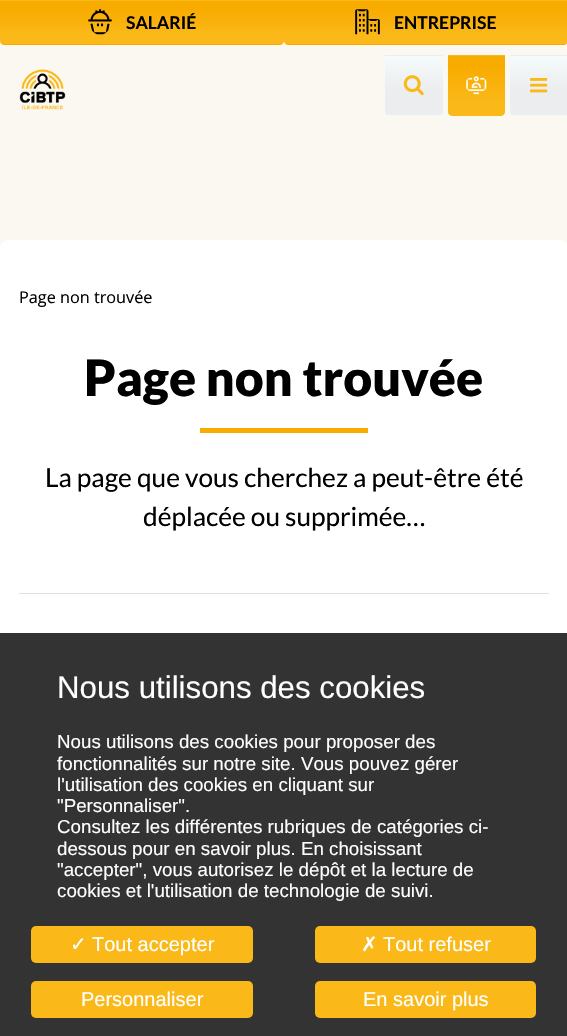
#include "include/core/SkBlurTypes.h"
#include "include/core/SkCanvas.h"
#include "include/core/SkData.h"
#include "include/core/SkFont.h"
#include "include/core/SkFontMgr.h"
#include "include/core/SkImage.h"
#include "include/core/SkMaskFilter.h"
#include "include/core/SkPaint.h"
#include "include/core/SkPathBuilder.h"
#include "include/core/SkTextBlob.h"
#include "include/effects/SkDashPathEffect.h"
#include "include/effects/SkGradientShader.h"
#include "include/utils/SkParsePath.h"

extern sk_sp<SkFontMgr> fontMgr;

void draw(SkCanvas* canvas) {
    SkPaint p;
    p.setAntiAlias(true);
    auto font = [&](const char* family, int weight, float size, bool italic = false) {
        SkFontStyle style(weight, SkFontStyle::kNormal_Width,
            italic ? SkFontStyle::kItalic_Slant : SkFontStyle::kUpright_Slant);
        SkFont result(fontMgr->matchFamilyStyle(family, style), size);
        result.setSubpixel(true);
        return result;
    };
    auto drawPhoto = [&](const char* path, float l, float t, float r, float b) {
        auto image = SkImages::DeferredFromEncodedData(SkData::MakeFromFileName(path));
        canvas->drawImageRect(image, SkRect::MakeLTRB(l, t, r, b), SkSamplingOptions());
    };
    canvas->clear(0xFFFAF8F1);
    {
        const SkColor colors[] = {0xFFF9AC00, 0xFFFAB919};
        const float stops[] = {0.2f, 0.8f};
        const SkPoint ends[] = {{142, -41}, {142, 1.3f}};
        p.setShader(SkGradientShader::MakeLinear(ends, colors, stops, 2, SkTileMode::kClamp));
        p.setAlpha(255);
    }
    canvas->drawRect(SkRect::MakeLTRB(0, 0, 284, 1), p);
    canvas->save();
    canvas->clipPath(SkPathBuilder().moveTo(0, 0).lineTo(284, 0).lineTo(284, 41).cubicTo(284, 43, 282, 45, 280, 45).lineTo(4, 45).cubicTo(2, 45, 0, 43, 0, 41).close().detach(), true);
    {
        const SkColor colors[] = {0xFFF9AC00, 0xFFFAB919};
        const float stops[] = {0.2f, 0.8f};
        const SkPoint ends[] = {{142, 1.2f}, {142, 44}};
        p.setShader(SkGradientShader::MakeLinear(ends, colors, stops, 2, SkTileMode::kClamp));
        p.setAlpha(255);
    }
    canvas->drawRect(SkRect::MakeLTRB(0, 1, 284, 44), p);
    {
        const SkColor colors[] = {0xFFF9AC00, 0xFFFAB919};
        const float stops[] = {0.2f, 0.8f};
        const SkPoint ends[] = {{142, 44}, {142, 86}};
        p.setShader(SkGradientShader::MakeLinear(ends, colors, stops, 2, SkTileMode::kClamp));
        p.setAlpha(255);
    }
    canvas->drawRect(SkRect::MakeLTRB(0, 44, 284, 45), p);
    canvas->restore();
    drawPhoto("media/1.png", 88, 9, 112, 35);
    auto font1 = font("Lato", 700, 17.5f);
    p.setShader(nullptr);
    p.setColor(0xFF000000);
    canvas->drawString("SALARIÉ", 126, 29, font1, p);
    {
        const SkColor colors[] = {0xFFF9AC00, 0xFFFAB919};
        const float stops[] = {0.2f, 0.8f};
        const SkPoint ends[] = {{426, -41}, {426, 1.3f}};
        p.setShader(SkGradientShader::MakeLinear(ends, colors, stops, 2, SkTileMode::kClamp));
        p.setAlpha(255);
    }
    canvas->drawRect(SkRect::MakeLTRB(284, 0, 567, 1), p);
    canvas->save();
    canvas->clipPath(SkPathBuilder().moveTo(284, 0).lineTo(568, 0).lineTo(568, 41).cubicTo(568, 43, 566, 45, 564, 45).lineTo(288, 45).cubicTo(286, 45, 284, 43, 284, 41).close().detach(), true);
    {
        const SkColor colors[] = {0xFFF9AC00, 0xFFFAB919};
        const float stops[] = {0.2f, 0.8f};
        const SkPoint ends[] = {{426, 1.2f}, {426, 44}};
        p.setShader(SkGradientShader::MakeLinear(ends, colors, stops, 2, SkTileMode::kClamp));
        p.setAlpha(255);
    }
    canvas->drawRect(SkRect::MakeLTRB(284, 1, 567, 44), p);
    {
        const SkColor colors[] = {0xFFF9AC00, 0xFFFAB919};
        const float stops[] = {0.2f, 0.8f};
        const SkPoint ends[] = {{426, 44}, {426, 86}};
        p.setShader(SkGradientShader::MakeLinear(ends, colors, stops, 2, SkTileMode::kClamp));
        p.setAlpha(255);
    }
    canvas->drawRect(SkRect::MakeLTRB(284, 44, 567, 45), p);
    canvas->restore();
    drawPhoto("media/2.png", 355, 9, 380, 35);
    p.setShader(nullptr);
    p.setColor(0xFF000000);
    canvas->drawString("ENTREPRISE", 394, 29, font1, p);
    drawPhoto("media/3.png", 19, 69, 66, 110);
    {
        const SkColor colors[] = {0xFFEBEDEE, 0xFFF5FAFB};
        const float stops[] = {0.4f, 1};
        const SkPoint ends[] = {{414, 56}, {414, -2.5f}};
        p.setShader(SkGradientShader::MakeLinear(ends, colors, stops, 2, SkTileMode::kClamp));
        p.setAlpha(255);
    }
    canvas->drawRect(SkRect::MakeLTRB(385, 55, 443, 56), p);
    canvas->save();
    canvas->clipPath(SkPathBuilder().moveTo(385, 55).lineTo(443, 55).lineTo(443, 111).cubicTo(443, 114, 441, 116, 438, 116).lineTo(390, 116).cubicTo(387, 116, 385, 114, 385, 111).close().detach(), true);
    {
        const SkColor colors[] = {0xFFEBEDEE, 0xFFF5FAFB};
        const float stops[] = {0.4f, 1};
        const SkPoint ends[] = {{414, 115}, {414, 56}};
        p.setShader(SkGradientShader::MakeLinear(ends, colors, stops, 2, SkTileMode::kClamp));
        p.setAlpha(255);
    }
    canvas->drawRect(SkRect::MakeLTRB(385, 56, 443, 115), p);
    {
        const SkColor colors[] = {0xFFEBEDEE, 0xFFF5FAFB};
        const float stops[] = {0.4f, 1};
        const SkPoint ends[] = {{414, 174}, {414, 115}};
        p.setShader(SkGradientShader::MakeLinear(ends, colors, stops, 2, SkTileMode::kClamp));
        p.setAlpha(255);
    }
    canvas->drawRect(SkRect::MakeLTRB(385, 115, 443, 116), p);
    canvas->restore();
    drawPhoto("media/4.png", 403, 75, 424, 96);
    p.setShader(nullptr);
    p.setColor(0xFFFAB919);
    canvas->drawPath(SkPathBuilder().moveTo(448, 55).lineTo(505, 55).lineTo(505, 111).cubicTo(505, 114, 503, 116, 500, 116).lineTo(453, 116).cubicTo(450, 116, 448, 114, 448, 111).close().detach(), p);
    canvas->save();
    canvas->clipPath(SkPathBuilder().moveTo(448, 55).lineTo(505, 55).lineTo(505, 111).cubicTo(505, 114, 503, 116, 500, 116).lineTo(453, 116).cubicTo(450, 116, 448, 114, 448, 111).close().detach(), true);
    {
        const SkColor colors[] = {0xFFF9AC00, 0xFFFAB919};
        const float stops[] = {0.2f, 0.8f};
        const SkPoint ends[] = {{476, 56}, {476, 115}};
        p.setShader(SkGradientShader::MakeLinear(ends, colors, stops, 2, SkTileMode::kClamp));
        p.setAlpha(255);
    }
    canvas->drawRect(SkRect::MakeLTRB(448, 56, 505, 115), p);
    canvas->restore();
    drawPhoto("media/5.png", 466, 76, 487, 95);
    {
        const SkColor colors[] = {0xFFEBEDEE, 0xFFF5FAFB};
        const float stops[] = {0.4f, 1};
        const SkPoint ends[] = {{539, 56}, {539, -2.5f}};
        p.setShader(SkGradientShader::MakeLinear(ends, colors, stops, 2, SkTileMode::kClamp));
        p.setAlpha(255);
    }
    canvas->drawRect(SkRect::MakeLTRB(510, 55, 567, 56), p);
    canvas->save();
    canvas->clipPath(SkPathBuilder().moveTo(510, 55).lineTo(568, 55).lineTo(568, 111).cubicTo(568, 114, 566, 116, 563, 116).lineTo(515, 116).cubicTo(512, 116, 510, 114, 510, 111).close().detach(), true);
    {
        const SkColor colors[] = {0xFFEBEDEE, 0xFFF5FAFB};
        const float stops[] = {0.4f, 1};
        const SkPoint ends[] = {{539, 115}, {539, 56}};
        p.setShader(SkGradientShader::MakeLinear(ends, colors, stops, 2, SkTileMode::kClamp));
        p.setAlpha(255);
    }
    canvas->drawRect(SkRect::MakeLTRB(510, 56, 567, 115), p);
    {
        const SkColor colors[] = {0xFFEBEDEE, 0xFFF5FAFB};
        const float stops[] = {0.4f, 1};
        const SkPoint ends[] = {{539, 174}, {539, 115}};
        p.setShader(SkGradientShader::MakeLinear(ends, colors, stops, 2, SkTileMode::kClamp));
        p.setAlpha(255);
    }
    canvas->drawRect(SkRect::MakeLTRB(510, 115, 567, 116), p);
    canvas->restore();
    drawPhoto("media/6.png", 530, 78, 548, 93);
    p.setShader(nullptr);
    p.setColor(0xFFFFFFFF);
    canvas->drawRoundRect(SkRect::MakeLTRB(0, 240, 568, 874), 8, 8, p);
    auto font2 = font("Open Sans", 400, 16.25f);
    p.setColor(0xFF000000);
    canvas->drawString("Page non trouvée", 19, 303, font2, p);
    auto font3 = font("Lato", 900, 50);
    canvas->drawString("Page non trouvée", 84, 396, font3, p);
    p.setColor(0xFFF9AC00);
    canvas->drawRect(SkRect::MakeLTRB(200, 428, 368, 433), p);
    p.setColor(0xFFE0E0E0);
    canvas->drawRect(SkRect::MakeLTRB(19, 593, 549, 594), p);
    auto font4 = font("Lato", 400, 26.25f);
    p.setColor(0xFF000000);
    canvas->drawString("La page que vous cherchez a peut-être été", 45, 487, font4, p);
    canvas->drawString("déplacée ou supprimée…", 143, 526, font4, p);
    p.setColor(0xFF333333);
    canvas->drawRect(SkRect::MakeLTRB(0, 633, 567, 1036), p);
    auto font5 = font("Liberation Sans", 400, 31.25f);
    p.setColor(0xFFFFFFFF);
    canvas->drawString("Nous utilisons des cookies", 57, 698, font5, p);
    auto font6 = font("Liberation Sans", 400, 18.75f);
    {
        const struct { const char* s; float x, y; } items[] = {
            {"Nous utilisons des cookies pour proposer des", 57, 748},
            {"fonctionnalités sur notre site. Vous pouvez gérer", 57, 770},
            {"l'utilisation des cookies en cliquant sur", 57, 791},
            {"\"Personnaliser\".", 57, 812},
            {"Consultez les différentes rubriques de catégories ci-", 57, 833},
            {"dessous pour en savoir plus. En choisissant", 57, 855},
            {"\"accepter\", vous autorisez le dépôt et la lecture de", 57, 876},
            {"cookies et l'utilisation de technologie de suivi.", 57, 897},
        };
        for (auto [s, x, y] : items) {
            canvas->drawString(s, x, y, font6, p);
        }
    }
    p.setColor(0xFFFAB919);
    canvas->drawRoundRect(SkRect::MakeLTRB(31, 926, 253, 963), 5, 5, p);
    auto font7 = font("DejaVu Sans", 400, 20);
    p.setColor(0xFFFFFFFF);
    canvas->drawString("✓", 70, 951, font7, p);
    auto font8 = font("Liberation Sans", 400, 20);
    canvas->drawString("Tout accepter", 92, 951, font8, p);
    p.setColor(0xFFFAB919);
    canvas->drawRoundRect(SkRect::MakeLTRB(315, 926, 536, 963), 5, 5, p);
    p.setColor(0xFFFFFFFF);
    canvas->drawString("✗", 361, 951, font7, p);
    canvas->drawString("Tout refuser", 383, 951, font8, p);
    p.setColor(0xFFFAB919);
    canvas->drawRoundRect(SkRect::MakeLTRB(31, 981, 253, 1018), 5, 5, p);
    p.setColor(0xFFFFFFFF);
    canvas->drawString("Personnaliser", 81, 1006, font8, p);
    p.setColor(0xFFFAB919);
    canvas->drawRoundRect(SkRect::MakeLTRB(315, 981, 536, 1018), 5, 5, p);
    p.setColor(0xFFFFFFFF);
    canvas->drawString("En savoir plus", 363, 1006, font8, p);
}
